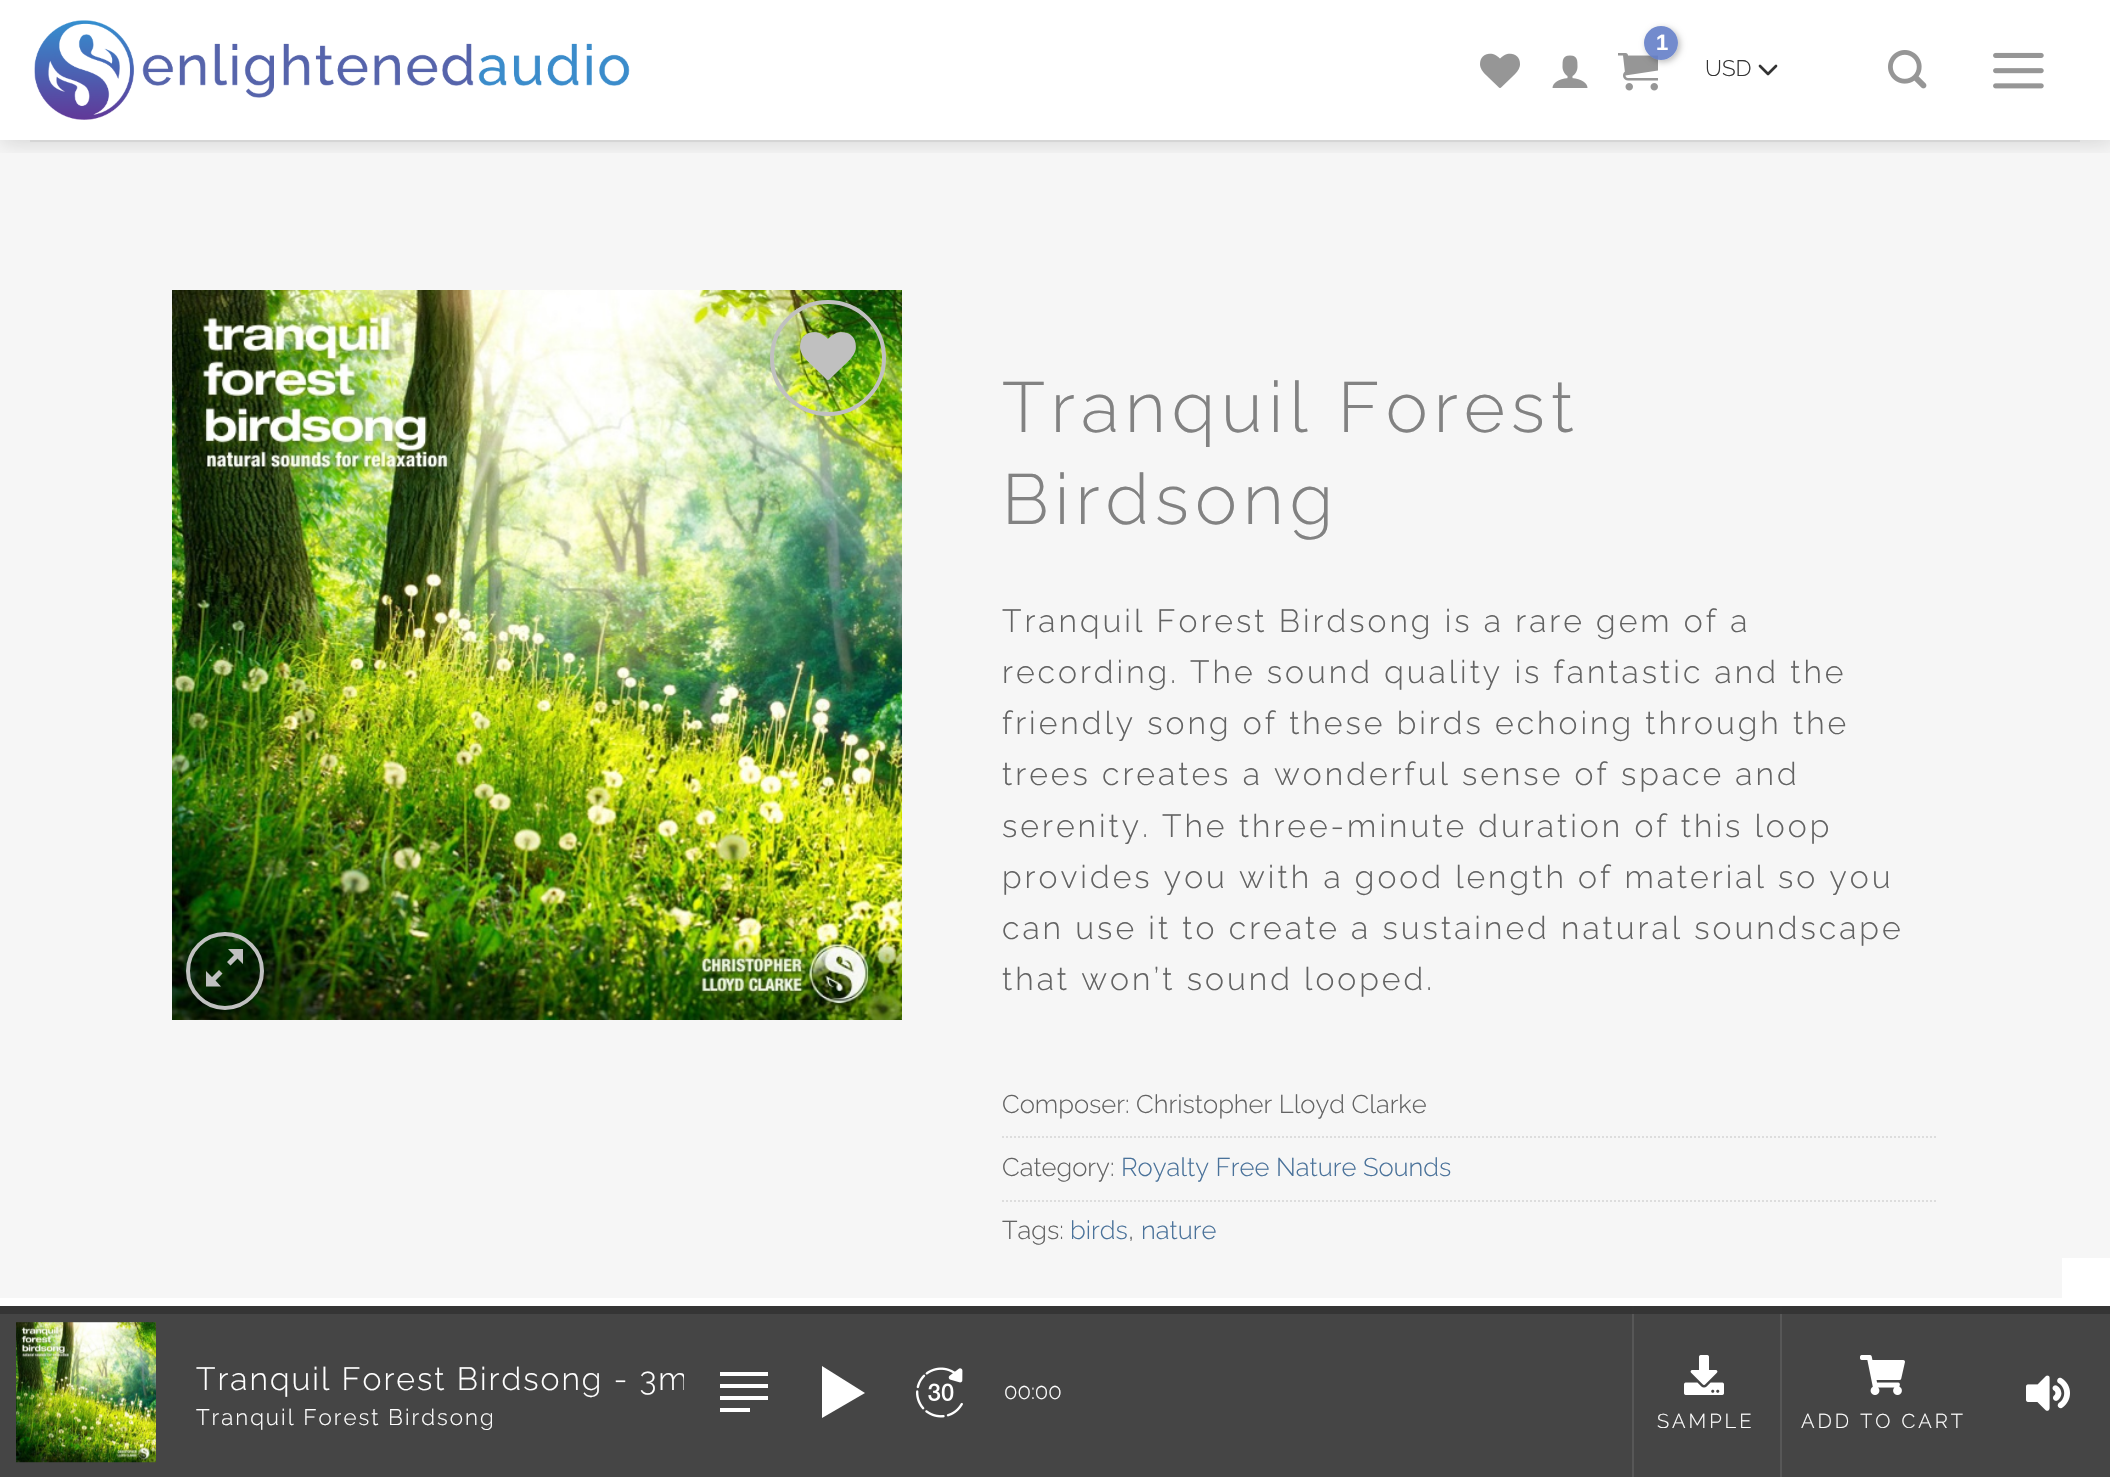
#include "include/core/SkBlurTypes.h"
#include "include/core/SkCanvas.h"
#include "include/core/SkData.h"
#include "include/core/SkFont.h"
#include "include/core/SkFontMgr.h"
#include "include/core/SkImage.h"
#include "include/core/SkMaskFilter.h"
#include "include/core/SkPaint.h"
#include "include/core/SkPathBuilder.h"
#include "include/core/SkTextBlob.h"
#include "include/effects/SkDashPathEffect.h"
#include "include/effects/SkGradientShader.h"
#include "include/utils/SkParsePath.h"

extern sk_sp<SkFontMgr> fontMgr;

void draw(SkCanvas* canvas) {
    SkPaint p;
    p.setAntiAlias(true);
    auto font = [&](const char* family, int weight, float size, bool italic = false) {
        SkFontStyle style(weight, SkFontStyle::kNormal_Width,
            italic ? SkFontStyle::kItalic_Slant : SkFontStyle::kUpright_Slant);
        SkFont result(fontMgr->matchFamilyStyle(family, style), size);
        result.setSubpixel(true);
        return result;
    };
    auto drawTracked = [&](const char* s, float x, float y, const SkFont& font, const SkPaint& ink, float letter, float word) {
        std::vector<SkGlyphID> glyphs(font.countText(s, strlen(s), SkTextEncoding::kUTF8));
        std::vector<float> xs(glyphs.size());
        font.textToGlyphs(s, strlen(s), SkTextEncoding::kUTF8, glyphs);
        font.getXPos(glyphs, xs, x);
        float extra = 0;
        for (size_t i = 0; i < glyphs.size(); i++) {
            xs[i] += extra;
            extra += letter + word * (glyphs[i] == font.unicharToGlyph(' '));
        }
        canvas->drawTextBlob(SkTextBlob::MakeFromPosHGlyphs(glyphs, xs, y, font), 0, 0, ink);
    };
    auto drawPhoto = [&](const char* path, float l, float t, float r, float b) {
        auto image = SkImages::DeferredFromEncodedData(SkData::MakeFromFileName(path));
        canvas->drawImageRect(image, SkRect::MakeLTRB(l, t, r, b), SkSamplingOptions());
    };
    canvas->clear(0xFFFFFFFF);
    p.setColor(0xFFF6F6F6);
    canvas->drawRect(SkRect::MakeLTRB(0, 140, 2110, 1298), p);
    canvas->save();
    canvas->clipRect(SkRect::MakeLTRB(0, 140, 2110, 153));
    p.setColor(0x26000000);
    p.setMaskFilter(SkMaskFilter::MakeBlur(kNormal_SkBlurStyle, 10));
    canvas->drawRect(SkRect::MakeLTRB(2, 2, 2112, 142), p);
    p.setMaskFilter(nullptr);
    canvas->restore();
    drawPhoto("media/1.png", 34, 20, 630, 120);
    drawPhoto("media/2.png", 1618, 53, 1658, 91);
    canvas->save();
    canvas->clipPath(SkPathBuilder(SkPathFillType::kEvenOdd).moveTo(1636, 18).lineTo(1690, 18).lineTo(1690, 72).lineTo(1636, 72).close().moveTo(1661, 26).cubicTo(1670.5f, 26, 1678, 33.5f, 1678, 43).cubicTo(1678, 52.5f, 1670.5f, 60, 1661, 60).cubicTo(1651.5f, 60, 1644, 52.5f, 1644, 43).cubicTo(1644, 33.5f, 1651.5f, 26, 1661, 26).close().detach(), true);
    p.setColor(0x45000000);
    p.setMaskFilter(SkMaskFilter::MakeBlur(kNormal_SkBlurStyle, 3));
    canvas->drawRoundRect(SkRect::MakeLTRB(1646, 28, 1680, 62), 17, 17, p);
    p.setMaskFilter(nullptr);
    canvas->restore();
    p.setColor(0xE6647EC8);
    canvas->drawCircle(1661, 43, 17, p);
    auto font1 = font("Liberation Sans", 700, 22);
    p.setColor(0xFFFFFFFF);
    drawTracked("1", 1656, 50, font1, p, -1, 0);
    drawPhoto("media/3.png", 1480, 53, 1520, 88);
    drawPhoto("media/4.png", 1552, 55, 1588, 88);
    p.setStyle(SkPaint::kStroke_Style);
    p.setStrokeWidth(2.7f);
    p.setStrokeCap(SkPaint::kRound_Cap);
    p.setStrokeJoin(SkPaint::kRound_Join);
    p.setColor(0xFF333333);
    canvas->drawPath(SkPathBuilder().moveTo(1760, 66).lineTo(1768, 74).lineTo(1776, 66).detach(), p);
    auto font2 = font("Raleway", 100, 22.4f);
    p.setStyle(SkPaint::kFill_Style);
    canvas->drawString("USD", 1705, 76, font2, p);
    drawPhoto("media/5.png", 1888, 50, 1927, 89);
    drawPhoto("media/6.png", 1993, 52, 2044, 89);
    {
        const struct { float l, t, r, b; SkColor color; } items[] = {
            {30, 140, 2080, 142, 0xFFD5D5D5},
            {0, 1314, 2110, 1477, 0xFF454545},
            {0, 1306, 2110, 1314, 0xFF353535},
        };
        for (auto [l, t, r, b, color] : items) {
            p.setColor(color);
            canvas->drawRect(SkRect::MakeLTRB(l, t, r, b), p);
        }
    }
    drawPhoto("media/7.png", 172, 290, 902, 1020);
    p.setStyle(SkPaint::kStroke_Style);
    p.setStrokeWidth(4);
    p.setStrokeCap(SkPaint::kButt_Cap);
    p.setStrokeJoin(SkPaint::kMiter_Join);
    p.setColor(0xFFC0C0C0);
    canvas->drawCircle(828, 358, 56, p);
    drawPhoto("media/8.png", 800, 332, 856, 380);
    canvas->drawCircle(225, 971, 37, p);
    p.setStyle(SkPaint::kFill_Style);
    canvas->drawPath(SkPathBuilder().moveTo(243, 949).lineTo(243, 964).lineTo(237.5f, 958.5f).lineTo(230.5f, 965.5f).lineTo(227, 962).lineTo(234, 955).lineTo(228, 949).close().moveTo(222.5f, 973.5f).lineTo(215.5f, 980.5f).lineTo(221, 986.5f).lineTo(206, 986.5f).lineTo(206, 971).lineTo(212, 977).lineTo(219, 970).close().detach(), p);
    auto font3 = font("Raleway", 100, 70.75f);
    p.setColor(0xFF828282);
    drawTracked("Tranquil Forest", 1002, 432, font3, p, 6, 0);
    drawTracked("Birdsong", 1002, 524, font3, p, 6, 0);
    auto font4 = font("Raleway", 100, 32);
    p.setColor(0xFF636363);
    {
        const struct { const char* s; float x, y; } items[] = {
            {"Tranquil Forest Birdsong is a rare gem of a", 1002, 632},
            {"recording. The sound quality is fantastic and the", 1002, 683},
            {"friendly song of these birds echoing through the", 1002, 734},
            {"trees creates a wonderful sense of space and", 1002, 785},
            {"serenity. The three-minute duration of this loop", 1002, 837},
            {"provides you with a good length of material so you", 1002, 888},
            {"can use it to create a sustained natural soundscape", 1002, 939},
            {"that won’t sound looped.", 1002, 990},
        };
        for (auto [s, x, y] : items) {
            drawTracked(s, x, y, font4, p, 3, 0);
        }
    }
    auto font5 = font("Raleway", 100, 25.6f);
    canvas->drawString("Composer: Christopher Lloyd Clarke", 1002, 1113, font5, p);
    p.setStyle(SkPaint::kStroke_Style);
    p.setStrokeWidth(2);
    p.setColor(0xFFDDDDDD);
    p.setPathEffect(SkDashPathEffect::Make({{2, 2}}, 0));
    canvas->drawPath(SkPathBuilder().moveTo(1002, 1137).lineTo(1938, 1137).detach(), p);
    p.setPathEffect(nullptr);
    p.setStyle(SkPaint::kFill_Style);
    p.setColor(0xFF636363);
    canvas->drawString("Category:", 1002, 1176, font5, p);
    p.setColor(0xFF4A729A);
    canvas->drawString("Royalty Free Nature Sounds", 1121, 1176, font5, p);
    p.setStyle(SkPaint::kStroke_Style);
    p.setColor(0xFFDDDDDD);
    p.setPathEffect(SkDashPathEffect::Make({{2, 2}}, 0));
    canvas->drawPath(SkPathBuilder().moveTo(1002, 1201).lineTo(1938, 1201).detach(), p);
    p.setPathEffect(nullptr);
    p.setStyle(SkPaint::kFill_Style);
    p.setColor(0xFF636363);
    canvas->drawString("Tags:", 1002, 1239, font5, p);
    p.setColor(0xFF4A729A);
    canvas->drawString("birds", 1070, 1239, font5, p);
    p.setColor(0xFF636363);
    canvas->drawString(",", 1128, 1239, font5, p);
    p.setColor(0xFF4A729A);
    canvas->drawString("nature", 1141, 1239, font5, p);
    p.setColor(0xFFFFFFFF);
    canvas->drawRect(SkRect::MakeLTRB(2062, 1258, 2110, 1298), p);
    drawPhoto("media/9.png", 16, 1322, 156, 1463);
    canvas->save();
    canvas->clipRect(SkRect::MakeLTRB(196, 1306, 684, 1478));
    drawTracked("Tranquil Forest Birdsong - 3m", 196, 1390, font4, p, 2, 0);
    canvas->restore();
    drawTracked("Tranquil Forest Birdsong", 196, 1425, font2, p, 2, 0);
    canvas->drawPath(SkPathBuilder().moveTo(720, 1372).lineTo(768, 1372).lineTo(768, 1376).lineTo(720, 1376).close().moveTo(720, 1384).lineTo(768, 1384).lineTo(768, 1388).lineTo(720, 1388).close().moveTo(720, 1396).lineTo(768, 1396).lineTo(768, 1400).lineTo(720, 1400).close().moveTo(720, 1408).lineTo(750, 1408).lineTo(750, 1412).lineTo(720, 1412).close().detach(), p);
    canvas->drawPath(SkPathBuilder().moveTo(822, 1366).lineTo(865, 1393).lineTo(822, 1418).close().detach(), p);
    drawPhoto("media/10.png", 916, 1367, 963, 1418);
    auto font6 = font("Raleway", 100, 22);
    canvas->drawString("00:00", 1004, 1399, font6, p);
    drawPhoto("media/11.png", 2026, 1375, 2070, 1411);
    p.setColor(0xFF575757);
    canvas->drawRect(SkRect::MakeLTRB(1632, 1306, 1634, 1477), p);
    p.setColor(0xFF363636);
    canvas->drawRect(SkRect::MakeLTRB(1632, 1306, 1634, 1314), p);
    drawPhoto("media/12.png", 1684, 1355, 1724, 1395);
    auto font7 = font("Raleway", 100, 20);
    p.setColor(0xFFFFFFFF);
    drawTracked("SAMPLE", 1657, 1428, font7, p, 3, 0);
    p.setColor(0xFF575757);
    canvas->drawRect(SkRect::MakeLTRB(1780, 1306, 1782, 1477), p);
    p.setColor(0xFF363636);
    canvas->drawRect(SkRect::MakeLTRB(1780, 1306, 1782, 1314), p);
    drawPhoto("media/13.png", 1860, 1355, 1905, 1395);
    p.setColor(0xFFFFFFFF);
    drawTracked("ADD TO CART", 1801, 1428, font7, p, 3, 0);
}
